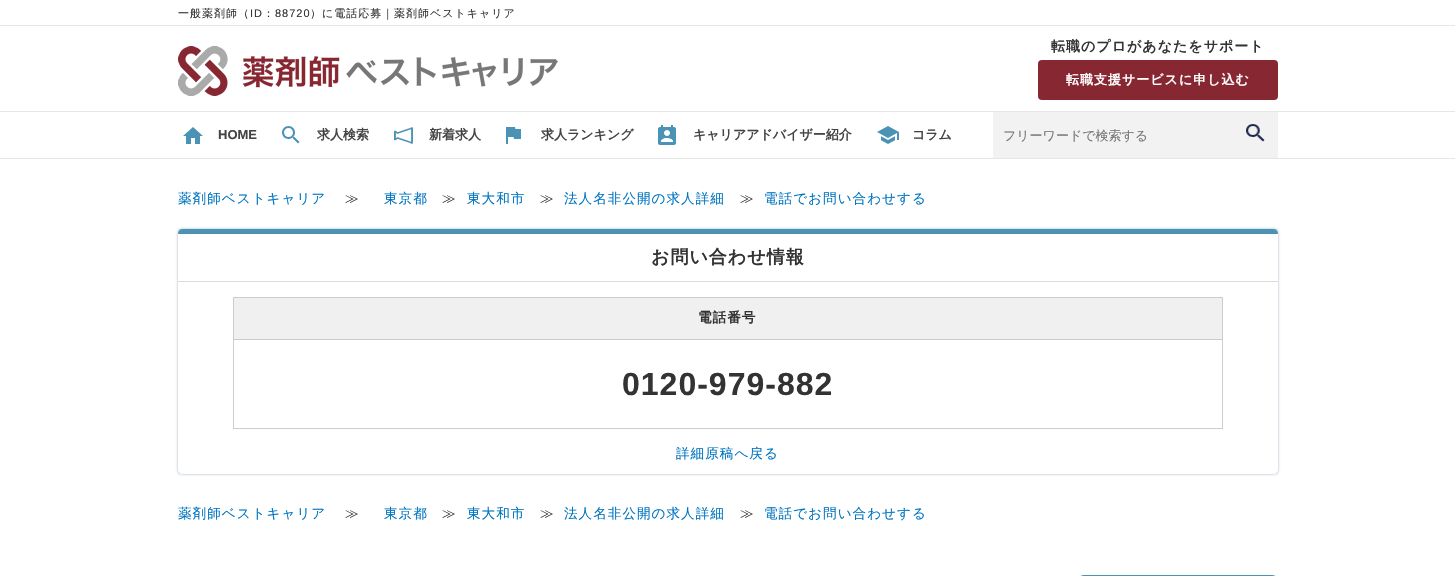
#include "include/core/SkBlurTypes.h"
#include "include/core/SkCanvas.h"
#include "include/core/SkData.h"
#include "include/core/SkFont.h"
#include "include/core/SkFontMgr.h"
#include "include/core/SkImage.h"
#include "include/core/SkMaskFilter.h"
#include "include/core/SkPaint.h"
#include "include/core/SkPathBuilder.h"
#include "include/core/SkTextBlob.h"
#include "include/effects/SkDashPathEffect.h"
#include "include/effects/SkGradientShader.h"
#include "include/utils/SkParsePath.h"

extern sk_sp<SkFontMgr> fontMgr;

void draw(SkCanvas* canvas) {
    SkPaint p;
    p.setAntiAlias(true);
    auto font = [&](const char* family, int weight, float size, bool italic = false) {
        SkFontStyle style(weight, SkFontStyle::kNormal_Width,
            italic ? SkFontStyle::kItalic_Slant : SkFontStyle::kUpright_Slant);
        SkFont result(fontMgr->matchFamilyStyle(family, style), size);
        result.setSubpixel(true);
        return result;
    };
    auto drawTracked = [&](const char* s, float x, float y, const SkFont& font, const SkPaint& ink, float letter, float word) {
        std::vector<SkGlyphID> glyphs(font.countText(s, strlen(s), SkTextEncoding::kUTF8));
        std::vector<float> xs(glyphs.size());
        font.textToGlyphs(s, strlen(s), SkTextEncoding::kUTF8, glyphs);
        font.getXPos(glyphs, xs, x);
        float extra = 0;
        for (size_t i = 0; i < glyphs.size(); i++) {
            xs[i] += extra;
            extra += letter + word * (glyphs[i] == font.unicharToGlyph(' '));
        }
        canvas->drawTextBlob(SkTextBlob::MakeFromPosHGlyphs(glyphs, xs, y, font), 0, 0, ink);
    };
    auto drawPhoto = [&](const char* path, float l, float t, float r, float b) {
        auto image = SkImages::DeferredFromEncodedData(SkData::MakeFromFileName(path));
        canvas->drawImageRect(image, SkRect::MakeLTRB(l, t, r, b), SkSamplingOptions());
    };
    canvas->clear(0xFFFFFFFF);
    auto font1 = font("WenQuanYi Zen Hei", 500, 11);
    p.setColor(0xFF333333);
    drawTracked("一般薬剤師（", 178, 17, font1, p, 1, 0);
    auto font2 = font("Liberation Sans", 400, 11);
    drawTracked("ID", 250, 17, font2, p, 1, 0);
    drawTracked("：", 263, 17, font1, p, 1, 0);
    drawTracked("88720", 275, 17, font2, p, 1, 0);
    drawTracked("）に電話応募｜薬剤師ベストキャリア", 310, 17, font1, p, 1, 0);
    p.setColor(0xFFE6E6E6);
    canvas->drawRect(SkRect::MakeLTRB(0, 25, 1455, 26), p);
    drawPhoto("media/1.png", 178, 46, 558, 96);
    auto font3 = font("WenQuanYi Zen Hei", 700, 14);
    p.setColor(0xFF333333);
    drawTracked("転職のプロがあなたをサポート", 1051, 51, font3, p, 1, 0);
    p.setColor(0xFF872732);
    canvas->drawRoundRect(SkRect::MakeLTRB(1038, 60, 1278, 100), 4, 4, p);
    auto font4 = font("WenQuanYi Zen Hei", 700, 13);
    p.setColor(0xFFFFFFFF);
    drawTracked("転職支援サービスに申し込む", 1066, 84, font4, p, 1, 0);
    p.setColor(0xFFE6E6E6);
    canvas->drawRect(SkRect::MakeLTRB(0, 111, 1455, 112), p);
    canvas->drawRect(SkRect::MakeLTRB(0, 158, 1455, 159), p);
    drawPhoto("media/2.png", 183, 127, 203, 144);
    auto font5 = font("Liberation Sans", 700, 13);
    p.setColor(0xFF444444);
    canvas->drawString("HOME", 218, 139, font5, p);
    drawPhoto("media/3.png", 282, 126, 300, 144);
    canvas->drawString("求人検索", 317, 139, font4, p);
    drawPhoto("media/4.png", 394, 127, 413, 144);
    canvas->drawString("新着求人", 429, 139, font4, p);
    drawPhoto("media/5.png", 506, 127, 521, 144);
    canvas->drawString("求人ランキング", 541, 139, font4, p);
    drawPhoto("media/6.png", 658, 125, 676, 145);
    canvas->drawString("キャリアアドバイザー紹介", 693, 139, font4, p);
    drawPhoto("media/7.png", 877, 126, 899, 144);
    canvas->drawString("コラム", 912, 139, font4, p);
    p.setColor(0xFFF2F2F2);
    canvas->drawRect(SkRect::MakeLTRB(993, 112, 1278, 158), p);
    auto font6 = font("WenQuanYi Zen Hei", 500, 13);
    p.setColor(0xFF757575);
    canvas->drawString("フリーワードで検索する", 1003, 140, font6, p);
    drawPhoto("media/8.png", 1246, 124, 1265, 142);
    auto font7 = font("WenQuanYi Zen Hei", 500, 13.6f);
    p.setColor(0xFF0075C1);
    drawTracked("薬剤師ベストキャリア", 178, 203, font7, p, 1, 0);
    p.setColor(0xFF333333);
    drawTracked("≫", 345, 203, font7, p, 1, 0);
    p.setColor(0xFF0075C1);
    drawTracked("東京都", 384, 203, font7, p, 1, 0);
    p.setColor(0xFF333333);
    drawTracked("≫", 442, 203, font7, p, 1, 0);
    p.setColor(0xFF0075C1);
    drawTracked("東大和市", 467, 203, font7, p, 1, 0);
    p.setColor(0xFF333333);
    drawTracked("≫", 540, 203, font7, p, 1, 0);
    p.setColor(0xFF0075C1);
    drawTracked("法人名非公開の求人詳細", 564, 203, font7, p, 1, 0);
    p.setColor(0xFF333333);
    drawTracked("≫", 740, 203, font7, p, 1, 0);
    p.setColor(0xFF0075C1);
    drawTracked("電話でお問い合わせする", 764, 203, font7, p, 1, 0);
    canvas->save();
    canvas->clipPath(SkPathBuilder(SkPathFillType::kEvenOdd).moveTo(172, 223).lineTo(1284, 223).lineTo(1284, 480).lineTo(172, 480).close().moveTo(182, 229).lineTo(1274, 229).cubicTo(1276, 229, 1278, 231, 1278, 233).lineTo(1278, 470).cubicTo(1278, 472, 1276, 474, 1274, 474).lineTo(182, 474).cubicTo(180, 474, 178, 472, 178, 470).lineTo(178, 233).cubicTo(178, 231, 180, 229, 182, 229).close().detach(), true);
    p.setColor(0xA67187A4);
    p.setMaskFilter(SkMaskFilter::MakeBlur(kNormal_SkBlurStyle, 1.5f));
    canvas->drawRoundRect(SkRect::MakeLTRB(178, 229, 1278, 474), 4, 4, p);
    p.setMaskFilter(nullptr);
    canvas->restore();
    p.setColor(0xFF4B93B4);
    canvas->drawPath(SkPathBuilder().moveTo(182, 229).cubicTo(179, 229, 178, 232, 178, 234).lineTo(1278, 234).cubicTo(1278, 232, 1277, 229, 1274, 229).close().detach(), p);
    p.setColor(0xFFDDDDDD);
    canvas->drawRect(SkRect::MakeLTRB(178, 281, 1278, 282), p);
    auto font8 = font("WenQuanYi Zen Hei", 700, 18);
    p.setColor(0xFF333333);
    drawTracked("お問い合わせ情報", 651, 263, font8, p, 1, 0);
    {
        const struct { float l, t, r, b; SkColor color; } items[] = {
            {234, 298, 1222, 339, 0xFFF0F0F0},
            {233, 297, 1223, 298, 0xFFCCCCCC},
            {233, 339, 1223, 340, 0xFFCCCCCC},
            {1222, 339, 1223, 429, 0xFFCCCCCC},
            {1222, 297, 1223, 340, 0xFFCCCCCC},
            {233, 428, 1223, 429, 0xFFCCCCCC},
            {233, 339, 234, 429, 0xFFCCCCCC},
            {233, 297, 234, 340, 0xFFCCCCCC},
        };
        for (auto [l, t, r, b, color] : items) {
            p.setColor(color);
            canvas->drawRect(SkRect::MakeLTRB(l, t, r, b), p);
        }
    }
    auto font9 = font("WenQuanYi Zen Hei", 700, 13.6f);
    p.setColor(0xFF333333);
    drawTracked("電話番号", 698, 322, font9, p, 1, 0);
    auto font10 = font("Liberation Sans", 700, 32);
    drawTracked("0120-979-882", 622, 395, font10, p, 1, 0);
    p.setColor(0xFF0075C1);
    drawTracked("詳細原稿へ戻る", 676, 458, font7, p, 1, 0);
    drawTracked("薬剤師ベストキャリア", 178, 518, font7, p, 1, 0);
    p.setColor(0xFF333333);
    drawTracked("≫", 345, 518, font7, p, 1, 0);
    p.setColor(0xFF0075C1);
    drawTracked("東京都", 384, 518, font7, p, 1, 0);
    p.setColor(0xFF333333);
    drawTracked("≫", 442, 518, font7, p, 1, 0);
    p.setColor(0xFF0075C1);
    drawTracked("東大和市", 467, 518, font7, p, 1, 0);
    p.setColor(0xFF333333);
    drawTracked("≫", 540, 518, font7, p, 1, 0);
    p.setColor(0xFF0075C1);
    drawTracked("法人名非公開の求人詳細", 564, 518, font7, p, 1, 0);
    p.setColor(0xFF333333);
    drawTracked("≫", 740, 518, font7, p, 1, 0);
    p.setColor(0xFF0075C1);
    drawTracked("電話でお問い合わせする", 764, 518, font7, p, 1, 0);
    p.setColor(0xFF4B93B4);
    canvas->drawPath(SkPathBuilder().moveTo(1084, 575).lineTo(1272, 575).cubicTo(1275.5f, 575, 1278, 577.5f, 1278, 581).lineTo(1278, 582).lineTo(1078, 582).lineTo(1078, 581).cubicTo(1078, 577.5f, 1080.5f, 575, 1084, 575).close().detach(), p);
}
